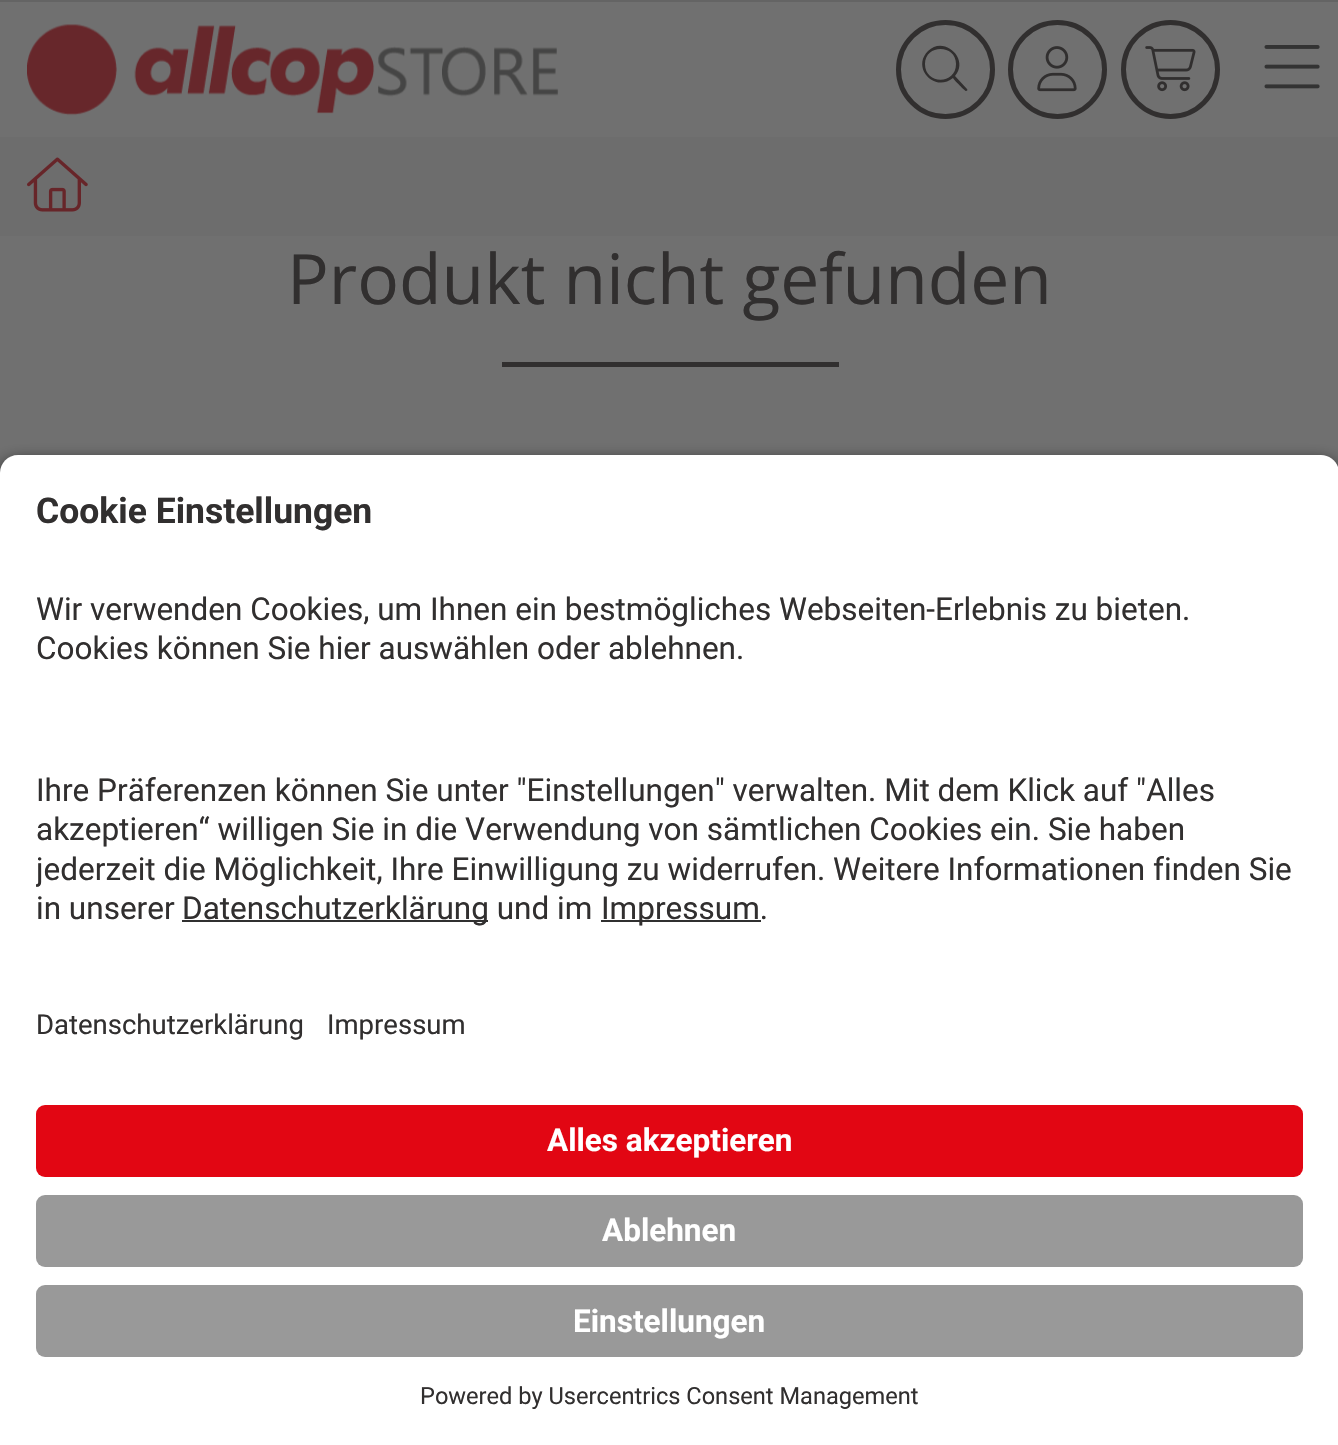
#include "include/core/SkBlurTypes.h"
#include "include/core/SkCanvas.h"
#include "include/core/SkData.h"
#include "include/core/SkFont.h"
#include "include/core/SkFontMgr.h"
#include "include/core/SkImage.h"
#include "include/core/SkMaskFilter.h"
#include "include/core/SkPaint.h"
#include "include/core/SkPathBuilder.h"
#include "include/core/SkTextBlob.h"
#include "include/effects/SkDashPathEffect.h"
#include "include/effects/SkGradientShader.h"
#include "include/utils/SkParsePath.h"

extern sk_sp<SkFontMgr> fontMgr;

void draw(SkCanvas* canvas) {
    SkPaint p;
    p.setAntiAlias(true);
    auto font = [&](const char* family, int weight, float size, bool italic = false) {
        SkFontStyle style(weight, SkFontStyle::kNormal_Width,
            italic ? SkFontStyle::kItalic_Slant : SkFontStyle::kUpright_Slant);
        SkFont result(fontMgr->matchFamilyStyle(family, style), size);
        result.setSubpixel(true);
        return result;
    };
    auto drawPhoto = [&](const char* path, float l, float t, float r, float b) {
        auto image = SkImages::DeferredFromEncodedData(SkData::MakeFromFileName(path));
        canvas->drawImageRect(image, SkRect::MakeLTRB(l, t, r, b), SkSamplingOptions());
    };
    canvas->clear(0xFF707070);
    p.setColor(0xFF646464);
    canvas->drawRect(SkRect::MakeLTRB(0, 0, 1338, 2), p);
    drawPhoto("media/1.png", 27, 24, 559, 116);
    p.setStyle(SkPaint::kStroke_Style);
    p.setStrokeWidth(5);
    p.setColor(0xFF312F2F);
    canvas->drawCircle(945.5f, 69.5f, 47, p);
    p.setStyle(SkPaint::kFill_Style);
    canvas->drawPath(SkPathBuilder().moveTo(956, 64).cubicTo(956, 44, 925, 44, 925, 64).cubicTo(925, 85, 956, 85, 956, 64).close().moveTo(953, 78).cubicTo(935, 93, 911, 68, 928, 51).cubicTo(944, 35, 970, 59, 955, 76).lineTo(967, 89).cubicTo(968, 90, 967, 91, 966, 91).cubicTo(965, 91, 954, 80, 953, 78).close().detach(), p);
    p.setStyle(SkPaint::kStroke_Style);
    canvas->drawCircle(1057.5f, 69.5f, 47, p);
    drawPhoto("media/2.png", 1037, 46, 1077, 92);
    canvas->drawCircle(1170.5f, 69.5f, 47, p);
    drawPhoto("media/3.png", 1145, 46, 1196, 92);
    drawPhoto("media/4.png", 1264, 45, 1320, 89);
    p.setStyle(SkPaint::kFill_Style);
    p.setColor(0xFF6D6D6D);
    canvas->drawRect(SkRect::MakeLTRB(0, 137, 1338, 236), p);
    drawPhoto("media/5.png", 27, 157, 88, 212);
    auto font1 = font("Open Sans", 400, 69.5f);
    p.setColor(0xFF312F2F);
    canvas->drawString("Produkt nicht gefunden", 287, 304, font1, p);
    canvas->drawRect(SkRect::MakeLTRB(502, 362, 839, 367), p);
    p.setColor(0xCC000000);
    p.setMaskFilter(SkMaskFilter::MakeBlur(kNormal_SkBlurStyle, 8));
    canvas->drawRoundRect(SkRect::MakeLTRB(0, 461, 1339, 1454), 18, 18, p);
    p.setMaskFilter(nullptr);
    p.setColor(0xFFFFFFFF);
    canvas->drawPath(SkPathBuilder().moveTo(18, 455).lineTo(1321, 455).cubicTo(1331, 455, 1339, 463, 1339, 473).lineTo(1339, 974).lineTo(0, 974).lineTo(0, 473).cubicTo(0, 463, 8, 455, 18, 455).close().detach(), p);
    auto font2 = font("Roboto", 700, 35.5f);
    p.setColor(0xFF312F2F);
    canvas->drawString("Cookie Einstellungen", 36, 523, font2, p);
    auto font3 = font("Roboto", 400, 31.5f);
    {
        const struct { const char* s; float x, y; } items[] = {
            {"Wir verwenden Cookies, um Ihnen ein bestmögliches Webseiten-Erlebnis zu bieten.", 36, 620},
            {"Cookies können Sie hier auswählen oder ablehnen.", 36, 659},
            {"Ihre Präferenzen können Sie unter \"Einstellungen\" verwalten. Mit dem Klick auf \"Alles", 36, 801},
            {"akzeptieren“ willigen Sie in die Verwendung von sämtlichen Cookies ein. Sie haben", 36, 840},
        };
        for (auto [s, x, y] : items) {
            canvas->drawString(s, x, y, font3, p);
        }
    }
    canvas->save();
    canvas->clipRect(SkRect::MakeLTRB(36, 549, 1303, 938));
    canvas->drawString("jederzeit die Möglichkeit, Ihre Einwilligung zu widerrufen.", 36, 880, font3, p);
    canvas->restore();
    canvas->drawString("Weitere Informationen finden Sie", 833, 880, font3, p);
    canvas->drawString("in unserer", 36, 919, font3, p);
    p.setColor(0xFF303030);
    canvas->drawRect(SkRect::MakeLTRB(182, 920, 488, 922), p);
    p.setColor(0xFF312F2F);
    canvas->drawString("Datenschutzerklärung und im", 182, 919, font3, p);
    p.setColor(0xFF303030);
    canvas->drawRect(SkRect::MakeLTRB(601, 920, 761, 922), p);
    p.setColor(0xFF312F2F);
    canvas->drawString("Impressum.", 601, 919, font3, p);
    p.setColor(0xFFFFFFFF);
    canvas->drawRect(SkRect::MakeLTRB(0, 974, 1338, 1445), p);
    auto font4 = font("Roboto", 400, 27.5f);
    p.setColor(0xFF312F2F);
    canvas->drawString("Datenschutzerklärung", 36, 1034, font4, p);
    canvas->drawString("Impressum", 327, 1034, font4, p);
    p.setColor(0xFFE20613);
    canvas->drawRoundRect(SkRect::MakeLTRB(36, 1105, 1303, 1177), 9, 9, p);
    auto font5 = font("Roboto", 700, 31.5f);
    p.setColor(0xFFFFFFFF);
    canvas->drawString("Alles akzeptieren", 547, 1151, font5, p);
    p.setColor(0xFF999999);
    canvas->drawRoundRect(SkRect::MakeLTRB(36, 1195, 1303, 1267), 9, 9, p);
    p.setColor(0xFFFFFFFF);
    canvas->drawString("Ablehnen", 602, 1241, font5, p);
    p.setColor(0xFF999999);
    canvas->drawRoundRect(SkRect::MakeLTRB(36, 1285, 1303, 1357), 9, 9, p);
    p.setColor(0xFFFFFFFF);
    canvas->drawString("Einstellungen", 573, 1332, font5, p);
    auto font6 = font("Roboto", 400, 23.6f);
    p.setColor(0xFF312F2F);
    canvas->drawString("Powered by Usercentrics Consent Management", 420, 1404, font6, p);
}
